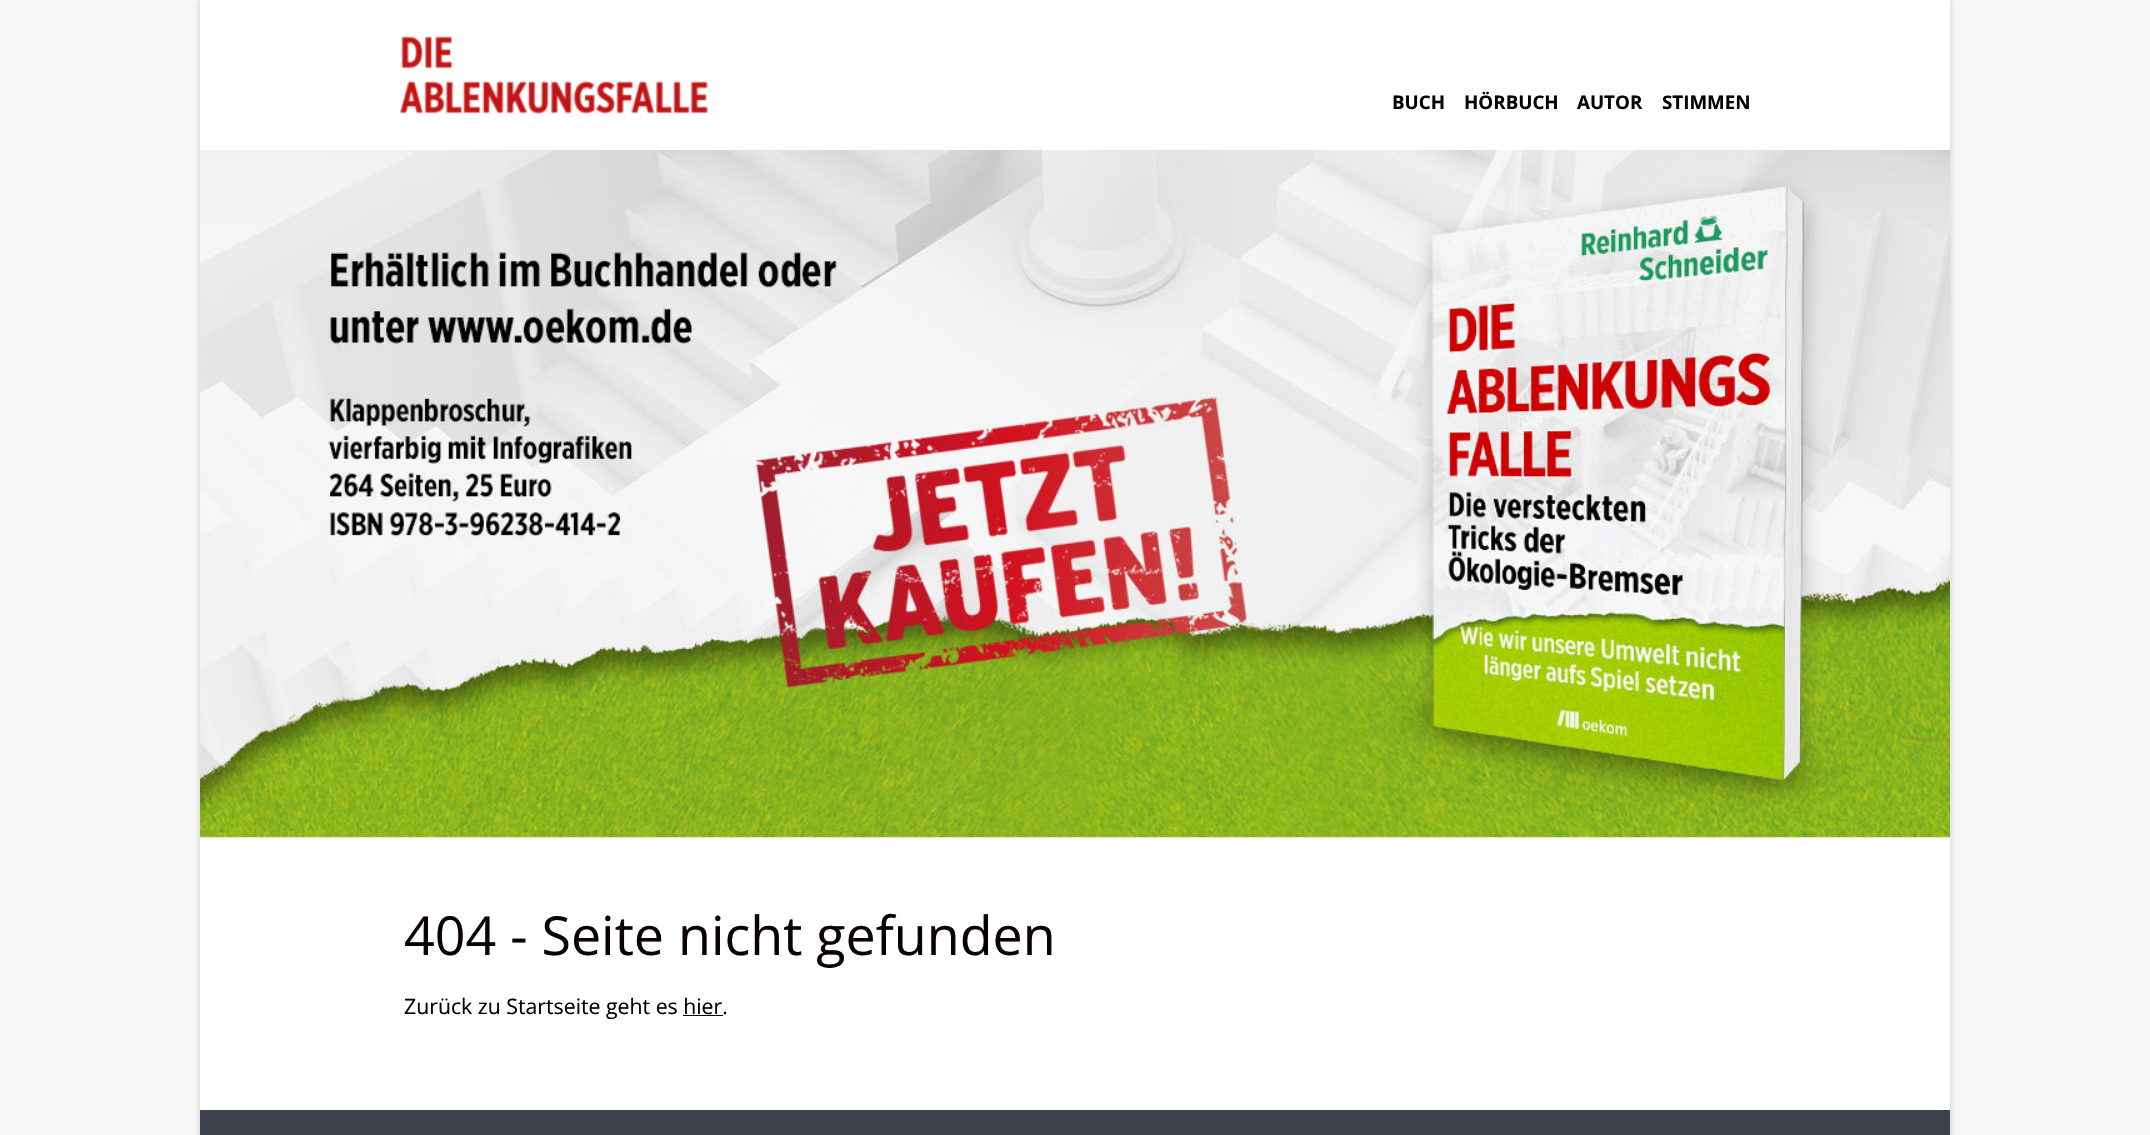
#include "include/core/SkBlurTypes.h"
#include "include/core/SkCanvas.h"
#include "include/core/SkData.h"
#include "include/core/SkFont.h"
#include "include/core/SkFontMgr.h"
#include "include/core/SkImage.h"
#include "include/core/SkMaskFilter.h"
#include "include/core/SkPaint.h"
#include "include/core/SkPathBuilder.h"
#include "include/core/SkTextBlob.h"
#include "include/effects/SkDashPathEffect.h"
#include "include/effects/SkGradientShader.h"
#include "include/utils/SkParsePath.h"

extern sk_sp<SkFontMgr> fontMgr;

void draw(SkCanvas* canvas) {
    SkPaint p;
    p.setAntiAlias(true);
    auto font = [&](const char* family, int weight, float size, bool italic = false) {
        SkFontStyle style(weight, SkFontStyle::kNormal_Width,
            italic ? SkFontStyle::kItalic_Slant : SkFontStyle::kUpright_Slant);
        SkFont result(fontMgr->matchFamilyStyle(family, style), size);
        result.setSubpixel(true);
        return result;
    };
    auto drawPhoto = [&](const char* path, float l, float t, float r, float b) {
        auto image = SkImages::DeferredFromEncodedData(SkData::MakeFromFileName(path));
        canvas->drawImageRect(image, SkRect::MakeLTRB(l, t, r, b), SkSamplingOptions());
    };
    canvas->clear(0xFFF7F7F7);
    p.setColor(0x33111111);
    p.setMaskFilter(SkMaskFilter::MakeBlur(kNormal_SkBlurStyle, 3));
    canvas->drawRect(SkRect::MakeLTRB(200, 0, 1950, 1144), p);
    p.setMaskFilter(nullptr);
    p.setColor(0xFFFFFFFF);
    canvas->drawRect(SkRect::MakeLTRB(200, 0, 1950, 1110), p);
    drawPhoto("media/1.png", 400, 36, 709, 114);
    auto font1 = font("Open Sans", 700, 18.75f);
    p.setColor(0xFF000000);
    {
        const struct { const char* s; float x, y; } items[] = {
            {"BUCH", 1392, 109},
            {"HÖRBUCH", 1464, 109},
            {"AUTOR", 1577, 109},
            {"STIMMEN", 1662, 109},
        };
        for (auto [s, x, y] : items) {
            canvas->drawString(s, x, y, font1, p);
        }
    }
    drawPhoto("media/2.png", 200, 150, 1950, 838);
    auto font2 = font("Open Sans", 400, 53.75f);
    p.setColor(0xFF0A0202);
    canvas->drawString("404 - Seite nicht gefunden", 404, 955, font2, p);
    auto font3 = font("Open Sans", 400, 21.25f);
    p.setColor(0xFF000000);
    canvas->drawString("Zurück zu Startseite geht es hier.", 404, 1014, font3, p);
    canvas->drawRect(SkRect::MakeLTRB(683, 1015, 723, 1016), p);
    p.setColor(0xFF3D414C);
    canvas->drawRect(SkRect::MakeLTRB(200, 1110, 1950, 1135), p);
}
